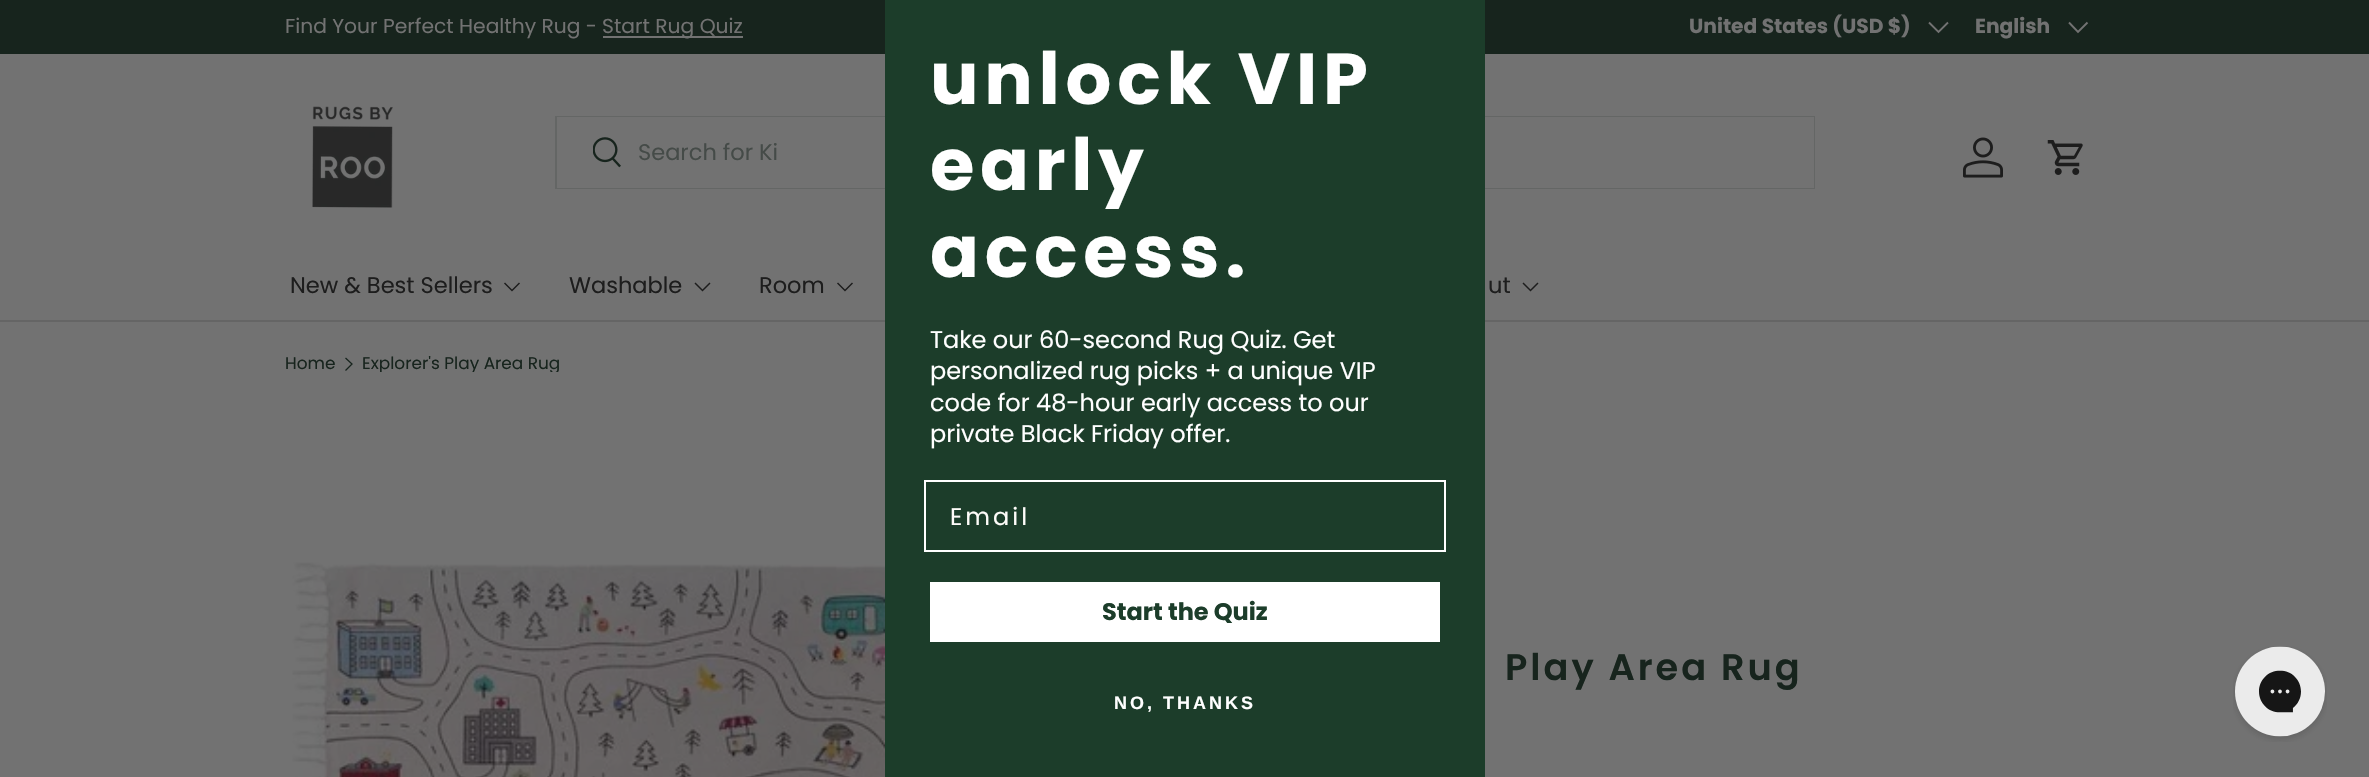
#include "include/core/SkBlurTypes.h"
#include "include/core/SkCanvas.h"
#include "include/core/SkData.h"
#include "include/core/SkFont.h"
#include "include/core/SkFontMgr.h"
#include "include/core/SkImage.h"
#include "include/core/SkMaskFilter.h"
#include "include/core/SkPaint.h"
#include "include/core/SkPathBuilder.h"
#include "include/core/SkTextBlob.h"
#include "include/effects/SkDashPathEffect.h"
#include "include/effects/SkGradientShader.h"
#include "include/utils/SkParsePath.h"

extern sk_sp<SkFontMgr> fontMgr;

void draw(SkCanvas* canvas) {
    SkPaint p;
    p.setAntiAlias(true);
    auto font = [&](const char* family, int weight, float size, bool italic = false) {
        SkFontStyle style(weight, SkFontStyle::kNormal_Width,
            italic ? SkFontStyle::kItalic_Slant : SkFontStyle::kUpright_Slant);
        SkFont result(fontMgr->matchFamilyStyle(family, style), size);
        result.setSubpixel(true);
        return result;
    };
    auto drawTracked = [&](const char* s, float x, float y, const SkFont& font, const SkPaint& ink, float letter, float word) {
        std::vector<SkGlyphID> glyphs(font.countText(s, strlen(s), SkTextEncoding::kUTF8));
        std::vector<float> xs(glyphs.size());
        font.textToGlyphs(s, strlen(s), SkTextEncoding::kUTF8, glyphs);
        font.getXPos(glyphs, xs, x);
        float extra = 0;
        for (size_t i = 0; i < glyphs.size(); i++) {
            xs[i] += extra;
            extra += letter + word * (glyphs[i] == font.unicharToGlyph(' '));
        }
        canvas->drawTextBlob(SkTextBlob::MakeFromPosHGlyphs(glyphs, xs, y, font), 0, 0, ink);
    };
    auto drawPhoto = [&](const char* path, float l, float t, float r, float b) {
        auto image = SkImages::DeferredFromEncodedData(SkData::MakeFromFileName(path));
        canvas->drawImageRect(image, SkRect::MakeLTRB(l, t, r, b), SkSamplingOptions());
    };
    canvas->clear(0xFF727272);
    p.setColor(0xFF17241D);
    canvas->drawRect(SkRect::MakeLTRB(0, 0, 2369, 54), p);
    auto font1 = font("Poppins", 400, 20.25f);
    p.setColor(0xFF727272);
    canvas->drawString("Find Your Perfect Healthy Rug -", 285, 33, font1, p);
    canvas->drawRect(SkRect::MakeLTRB(603, 36, 743, 38), p);
    canvas->drawString("Start Rug Quiz", 602, 33, font1, p);
    auto font2 = font("Poppins", 700, 20.25f);
    canvas->drawString("United States (USD $)", 1689, 33, font2, p);
    p.setStyle(SkPaint::kStroke_Style);
    p.setStrokeWidth(1.9f);
    canvas->drawPath(SkPathBuilder().moveTo(1948, 22.5f).lineTo(1938.5f, 32).lineTo(1929, 22.5f).detach(), p);
    p.setStyle(SkPaint::kFill_Style);
    canvas->drawString("English", 1975, 33, font2, p);
    p.setStyle(SkPaint::kStroke_Style);
    canvas->drawPath(SkPathBuilder().moveTo(2087.5f, 22.5f).lineTo(2078, 32).lineTo(2069, 22.5f).detach(), p);
    p.setStrokeWidth(2);
    p.setColor(0xFF646665);
    canvas->drawRect(SkRect::MakeLTRB(556, 117, 1814, 188), p);
    p.setStyle(SkPaint::kFill_Style);
    {
        const struct { float l, t, r, b; SkColor color; } items[] = {
            {557, 117, 1814, 188, 0xFF727272},
            {0, 320, 2369, 322, 0x261D1D1D},
            {885, 0, 1485, 777, 0xFF1C3D2A},
        };
        for (auto [l, t, r, b, color] : items) {
            p.setColor(color);
            canvas->drawRect(SkRect::MakeLTRB(l, t, r, b), p);
        }
    }
    auto font3 = font("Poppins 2", 700, 72);
    p.setColor(0xFFFFFFFF);
    {
        const struct { const char* s; float x, y; } items[] = {
            {"unlock VIP", 930, 104},
            {"early", 930, 190},
            {"access.", 930, 277},
        };
        for (auto [s, x, y] : items) {
            drawTracked(s, x, y, font3, p, 5.75f, 0);
        }
    }
    auto font4 = font("Poppins 2", 400, 24);
    {
        const struct { const char* s; float x, y; } items[] = {
            {"Take our 60-second Rug Quiz. Get", 930, 348},
            {"personalized rug picks + a unique VIP", 930, 379},
            {"code for 48-hour early access to our", 930, 411},
            {"private Black Friday offer.", 930, 442},
        };
        for (auto [s, x, y] : items) {
            canvas->drawString(s, x, y, font4, p);
        }
    }
    p.setStyle(SkPaint::kStroke_Style);
    canvas->drawRect(SkRect::MakeLTRB(925, 481, 1445, 551), p);
    p.setStyle(SkPaint::kFill_Style);
    p.setColor(0xFFFEFCF9);
    drawTracked("Email", 950, 525, font4, p, 3, 0);
    p.setColor(0xFFFFFFFF);
    canvas->drawRect(SkRect::MakeLTRB(930, 582, 1440, 642), p);
    auto font5 = font("Poppins", 700, 24);
    p.setColor(0xFF1C3D2A);
    canvas->drawString("Start the Quiz", 1102, 620, font5, p);
    auto font6 = font("Liberation Sans", 700, 18);
    p.setColor(0xFFFFFFFF);
    drawTracked("NO, THANKS", 1114, 709, font6, p, 3, 0);
    drawPhoto("media/1.png", 312, 106, 393, 208);
    drawPhoto("media/2.png", 593, 137, 621, 168);
    auto font7 = font("Poppins", 400, 22.5f);
    p.setColor(0xFF454B48);
    canvas->drawString("Search for Ki", 638, 160, font7, p);
    drawPhoto("media/3.png", 1963, 137, 2003, 178);
    drawPhoto("media/4.png", 2047, 140, 2083, 175);
    p.setColor(0xFF1D1D1D);
    canvas->drawString("New & Best Sellers", 290, 293, font7, p);
    p.setStyle(SkPaint::kStroke_Style);
    p.setStrokeWidth(1.5f);
    canvas->drawPath(SkPathBuilder().moveTo(519.5f, 283).lineTo(512, 290.5f).lineTo(504.5f, 283).detach(), p);
    p.setStyle(SkPaint::kFill_Style);
    canvas->drawString("Washable", 569, 293, font7, p);
    p.setStyle(SkPaint::kStroke_Style);
    canvas->drawPath(SkPathBuilder().moveTo(710, 283).lineTo(702.5f, 290.5f).lineTo(695, 283).detach(), p);
    p.setStyle(SkPaint::kFill_Style);
    canvas->drawString("Room", 759, 293, font7, p);
    p.setStyle(SkPaint::kStroke_Style);
    canvas->drawPath(SkPathBuilder().moveTo(852.5f, 283).lineTo(845, 290.5f).lineTo(837.5f, 283).detach(), p);
    p.setStyle(SkPaint::kFill_Style);
    canvas->drawString("ut", 1488, 293, font7, p);
    p.setStyle(SkPaint::kStroke_Style);
    canvas->drawPath(SkPathBuilder().moveTo(1538, 283).lineTo(1530.5f, 290.5f).lineTo(1523, 283).detach(), p);
    auto font8 = font("Poppins", 400, 16.9f);
    p.setStyle(SkPaint::kFill_Style);
    p.setColor(0xFF17241D);
    canvas->drawString("Home", 285, 369, font8, p);
    p.setStyle(SkPaint::kStroke_Style);
    p.setStrokeWidth(1.3f);
    canvas->drawPath(SkPathBuilder().moveTo(345.5f, 358).lineTo(352, 364).lineTo(345.5f, 370.5f).detach(), p);
    canvas->save();
    canvas->clipRect(SkRect::MakeLTRB(362, 356, 560, 372));
    p.setStyle(SkPaint::kFill_Style);
    canvas->drawString("Explorer's Play Area Rug", 362, 369, font8, p);
    canvas->restore();
    drawPhoto("media/5.png", 292, 562, 885, 777);
    auto font9 = font("Poppins", 600, 36.75f);
    drawTracked("Play Area Rug", 1505, 680, font9, p, 3, 0);
    drawPhoto("media/6.png", 2233, 646, 2327, 742);
}
